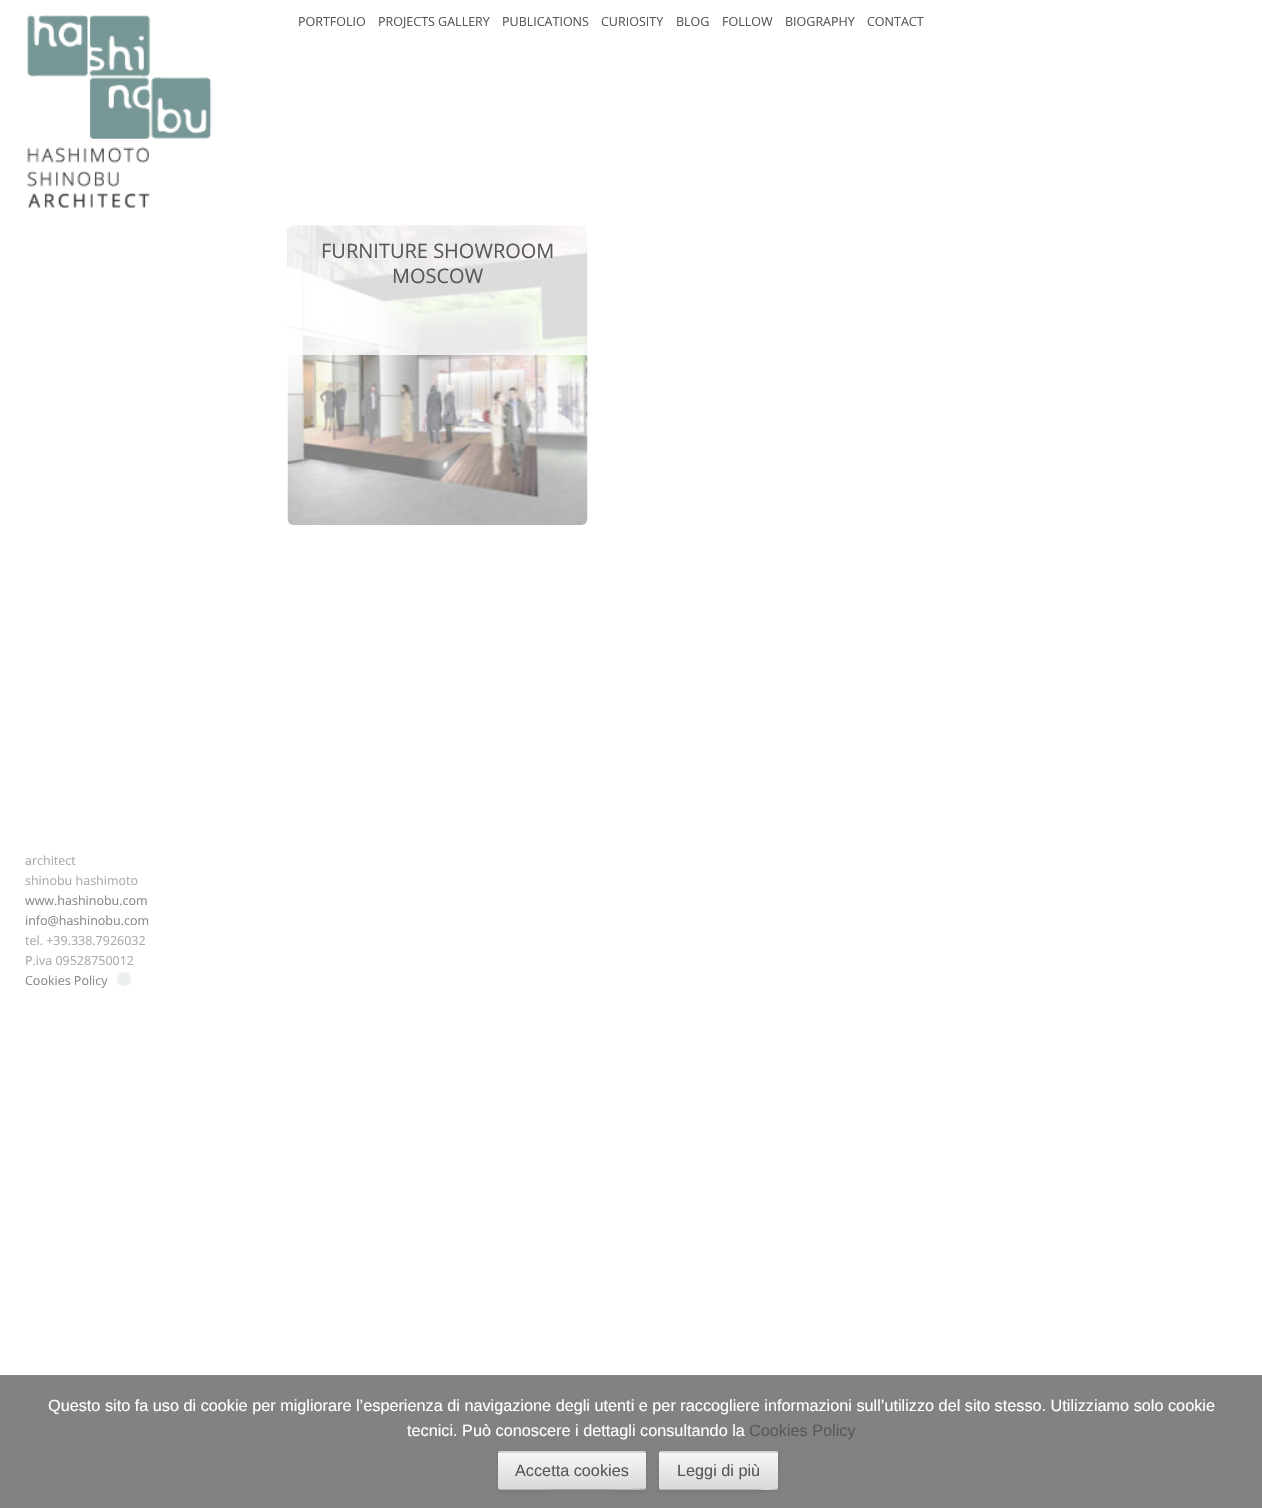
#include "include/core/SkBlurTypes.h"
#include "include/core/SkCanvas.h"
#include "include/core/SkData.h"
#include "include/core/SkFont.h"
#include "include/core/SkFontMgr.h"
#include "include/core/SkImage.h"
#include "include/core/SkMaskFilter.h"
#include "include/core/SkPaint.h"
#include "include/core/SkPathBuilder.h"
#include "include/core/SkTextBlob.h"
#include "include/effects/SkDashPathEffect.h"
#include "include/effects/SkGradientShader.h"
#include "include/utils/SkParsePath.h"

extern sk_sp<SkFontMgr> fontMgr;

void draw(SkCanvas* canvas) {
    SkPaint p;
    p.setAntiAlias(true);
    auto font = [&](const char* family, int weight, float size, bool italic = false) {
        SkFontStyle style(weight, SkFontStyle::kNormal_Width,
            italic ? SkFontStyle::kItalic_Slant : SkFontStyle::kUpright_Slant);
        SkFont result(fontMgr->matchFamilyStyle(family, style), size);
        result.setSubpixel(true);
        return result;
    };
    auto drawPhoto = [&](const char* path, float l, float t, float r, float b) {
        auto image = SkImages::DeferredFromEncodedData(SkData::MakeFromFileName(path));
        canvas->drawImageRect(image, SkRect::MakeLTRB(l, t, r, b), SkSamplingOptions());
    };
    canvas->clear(0xFFFFFFFF);
    drawPhoto("media/1.png", 27, 15, 212, 208);
    auto font1 = font("Open Sans", 400, 12.5f);
    p.setColor(0xFF595858);
    {
        const struct { const char* s; float x, y; } items[] = {
            {"PORTFOLIO", 298, 26},
            {"PROJECTS GALLERY", 378, 26},
            {"PUBLICATIONS", 502, 26},
            {"CURIOSITY", 601, 26},
            {"BLOG", 676, 26},
            {"FOLLOW", 722, 26},
            {"BIOGRAPHY", 785, 26},
            {"CONTACT", 867, 26},
        };
        for (auto [s, x, y] : items) {
            canvas->drawString(s, x, y, font1, p);
        }
    }
    drawPhoto("media/2.png", 287, 225, 588, 525);
    p.setColor(0xCCFFFFFF);
    canvas->drawRect(SkRect::MakeLTRB(288, 225, 588, 355), p);
    auto font2 = font("Open Sans", 400, 20);
    p.setColor(0xFF595858);
    canvas->drawString("FURNITURE SHOWROOM", 321, 258, font2, p);
    canvas->drawString("MOSCOW", 392, 283, font2, p);
    p.setColor(0xFFAAAAAA);
    canvas->drawString("architect", 25, 865, font1, p);
    canvas->drawString("shinobu hashimoto", 25, 885, font1, p);
    p.setColor(0xFF888888);
    canvas->drawString("www.hashinobu.com", 25, 905, font1, p);
    canvas->drawString("info@hashinobu.com", 25, 925, font1, p);
    p.setColor(0xFFAAAAAA);
    canvas->drawString("tel. +39.338.7926032", 25, 945, font1, p);
    canvas->drawString("P.iva 09528750012", 25, 965, font1, p);
    p.setColor(0xFF888888);
    canvas->drawString("Cookies Policy", 25, 985, font1, p);
    drawPhoto("media/3.png", 116, 972, 131, 987);
    p.setColor(0xFF828282);
    canvas->drawRect(SkRect::MakeLTRB(0, 1375, 1262, 1508), p);
    auto font3 = font("Liberation Sans", 400, 16.25f);
    p.setColor(0xFFFFFFFF);
    canvas->drawString("Questo sito fa uso di cookie per migliorare l’esperienza di navigazione degli utenti e per raccogliere informazioni sull’utilizzo del sito stesso. Utilizziamo solo cookie", 48, 1411, font3, p);
    canvas->drawString("tecnici. Può conoscere i dettagli consultando la", 407, 1436, font3, p);
    p.setColor(0xFF595858);
    canvas->drawString("Cookies Policy", 749, 1436, font3, p);
    p.setColor(0x1A000000);
    p.setMaskFilter(SkMaskFilter::MakeBlur(kNormal_SkBlurStyle, 2));
    canvas->drawRoundRect(SkRect::MakeLTRB(498, 1453, 646, 1491), 2.5f, 2.5f, p);
    p.setMaskFilter(nullptr);
    canvas->save();
    canvas->clipPath(SkPathBuilder().moveTo(500.5f, 1451).lineTo(643.5f, 1451).cubicTo(645, 1451, 646, 1452, 646, 1453.5f).lineTo(646, 1487.5f).cubicTo(646, 1489, 645, 1490, 643.5f, 1490).lineTo(500.5f, 1490).cubicTo(499, 1490, 498, 1489, 498, 1487.5f).lineTo(498, 1453.5f).cubicTo(498, 1452, 499, 1451, 500.5f, 1451).close().detach(), true);
    {
        const SkColor colors[] = {0xFFF7F7F7, 0xFFD9D9D9};
        const float stops[] = {0, 1};
        const SkPoint ends[] = {{572, 1416}, {572, 1453}};
        p.setShader(SkGradientShader::MakeLinear(ends, colors, stops, 2, SkTileMode::kClamp));
        p.setAlpha(255);
    }
    canvas->drawRect(SkRect::MakeLTRB(498, 1451, 646, 1453), p);
    canvas->restore();
    {
        const SkColor colors[] = {0xFFF7F7F7, 0xFFD9D9D9};
        const float stops[] = {0, 1};
        const SkPoint ends[] = {{572, 1453}, {572, 1489}};
        p.setShader(SkGradientShader::MakeLinear(ends, colors, stops, 2, SkTileMode::kClamp));
        p.setAlpha(255);
    }
    canvas->drawRect(SkRect::MakeLTRB(498, 1453, 646, 1489), p);
    p.setShader(nullptr);
    p.setColor(0xFFD2D2D2);
    canvas->drawPath(SkPathBuilder().moveTo(500, 1452).lineTo(644, 1452).cubicTo(645, 1452, 646, 1453, 646, 1454).cubicTo(646, 1453, 645, 1452, 645, 1451).lineTo(499, 1451).cubicTo(499, 1452, 498, 1453, 498, 1454).cubicTo(498, 1453, 499, 1452, 500, 1452).close().detach(), p);
    p.setColor(0xFFB5B5B5);
    canvas->drawPath(SkPathBuilder().moveTo(644, 1490).cubicTo(645, 1490, 646, 1489, 646, 1488).lineTo(645, 1488).cubicTo(643, 1490, 536, 1489, 524, 1489).lineTo(500, 1489).lineTo(498, 1488).cubicTo(498, 1489, 499, 1490, 500, 1490).close().detach(), p);
    p.setColor(0xFF595858);
    canvas->drawString("Accetta cookies", 515, 1476, font3, p);
    p.setColor(0x1A000000);
    p.setMaskFilter(SkMaskFilter::MakeBlur(kNormal_SkBlurStyle, 2));
    canvas->drawRoundRect(SkRect::MakeLTRB(659, 1453, 778, 1491), 2.5f, 2.5f, p);
    p.setMaskFilter(nullptr);
    canvas->save();
    canvas->clipPath(SkPathBuilder().moveTo(661.5f, 1451).lineTo(775.5f, 1451).cubicTo(777, 1451, 778, 1452, 778, 1453.5f).lineTo(778, 1487.5f).cubicTo(778, 1489, 777, 1490, 775.5f, 1490).lineTo(661.5f, 1490).cubicTo(660, 1490, 659, 1489, 659, 1487.5f).lineTo(659, 1453.5f).cubicTo(659, 1452, 660, 1451, 661.5f, 1451).close().detach(), true);
    {
        const SkColor colors[] = {0xFFF7F7F7, 0xFFD9D9D9};
        const float stops[] = {0, 1};
        const SkPoint ends[] = {{718, 1416}, {718, 1453}};
        p.setShader(SkGradientShader::MakeLinear(ends, colors, stops, 2, SkTileMode::kClamp));
        p.setAlpha(255);
    }
    canvas->drawRect(SkRect::MakeLTRB(659, 1451, 778, 1453), p);
    canvas->restore();
    {
        const SkColor colors[] = {0xFFF7F7F7, 0xFFD9D9D9};
        const float stops[] = {0, 1};
        const SkPoint ends[] = {{718, 1453}, {718, 1489}};
        p.setShader(SkGradientShader::MakeLinear(ends, colors, stops, 2, SkTileMode::kClamp));
        p.setAlpha(255);
    }
    canvas->drawRect(SkRect::MakeLTRB(659, 1453, 778, 1489), p);
    canvas->save();
    canvas->clipPath(SkPathBuilder().moveTo(661.5f, 1451).lineTo(775.5f, 1451).cubicTo(777, 1451, 778, 1452, 778, 1453.5f).lineTo(778, 1487.5f).cubicTo(778, 1489, 777, 1490, 775.5f, 1490).lineTo(661.5f, 1490).cubicTo(660, 1490, 659, 1489, 659, 1487.5f).lineTo(659, 1453.5f).cubicTo(659, 1452, 660, 1451, 661.5f, 1451).close().detach(), true);
    {
        const SkColor colors[] = {0xFFF7F7F7, 0xFFD9D9D9};
        const float stops[] = {0, 1};
        const SkPoint ends[] = {{718, 1489}, {718, 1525}};
        p.setShader(SkGradientShader::MakeLinear(ends, colors, stops, 2, SkTileMode::kClamp));
        p.setAlpha(255);
    }
    canvas->drawRect(SkRect::MakeLTRB(659, 1489, 778, 1490), p);
    canvas->restore();
    p.setShader(nullptr);
    p.setColor(0xFFD2D2D2);
    canvas->drawPath(SkPathBuilder().moveTo(661, 1452).cubicTo(660, 1452, 659, 1453, 659, 1454).cubicTo(659, 1453, 660, 1452, 660, 1451).lineTo(776, 1451).lineTo(778, 1452).lineTo(778, 1453).lineTo(775, 1452).close().detach(), p);
    p.setColor(0xFFB5B5B5);
    canvas->drawPath(SkPathBuilder().moveTo(778, 1488).lineTo(778, 1489).lineTo(775, 1490).lineTo(661, 1490).cubicTo(660, 1490, 659, 1489, 659, 1488).lineTo(661, 1489).lineTo(756, 1489).cubicTo(760, 1489, 771, 1491, 778, 1488).close().detach(), p);
    p.setColor(0xFF595858);
    canvas->drawString("Leggi di più", 677, 1476, font3, p);
}
